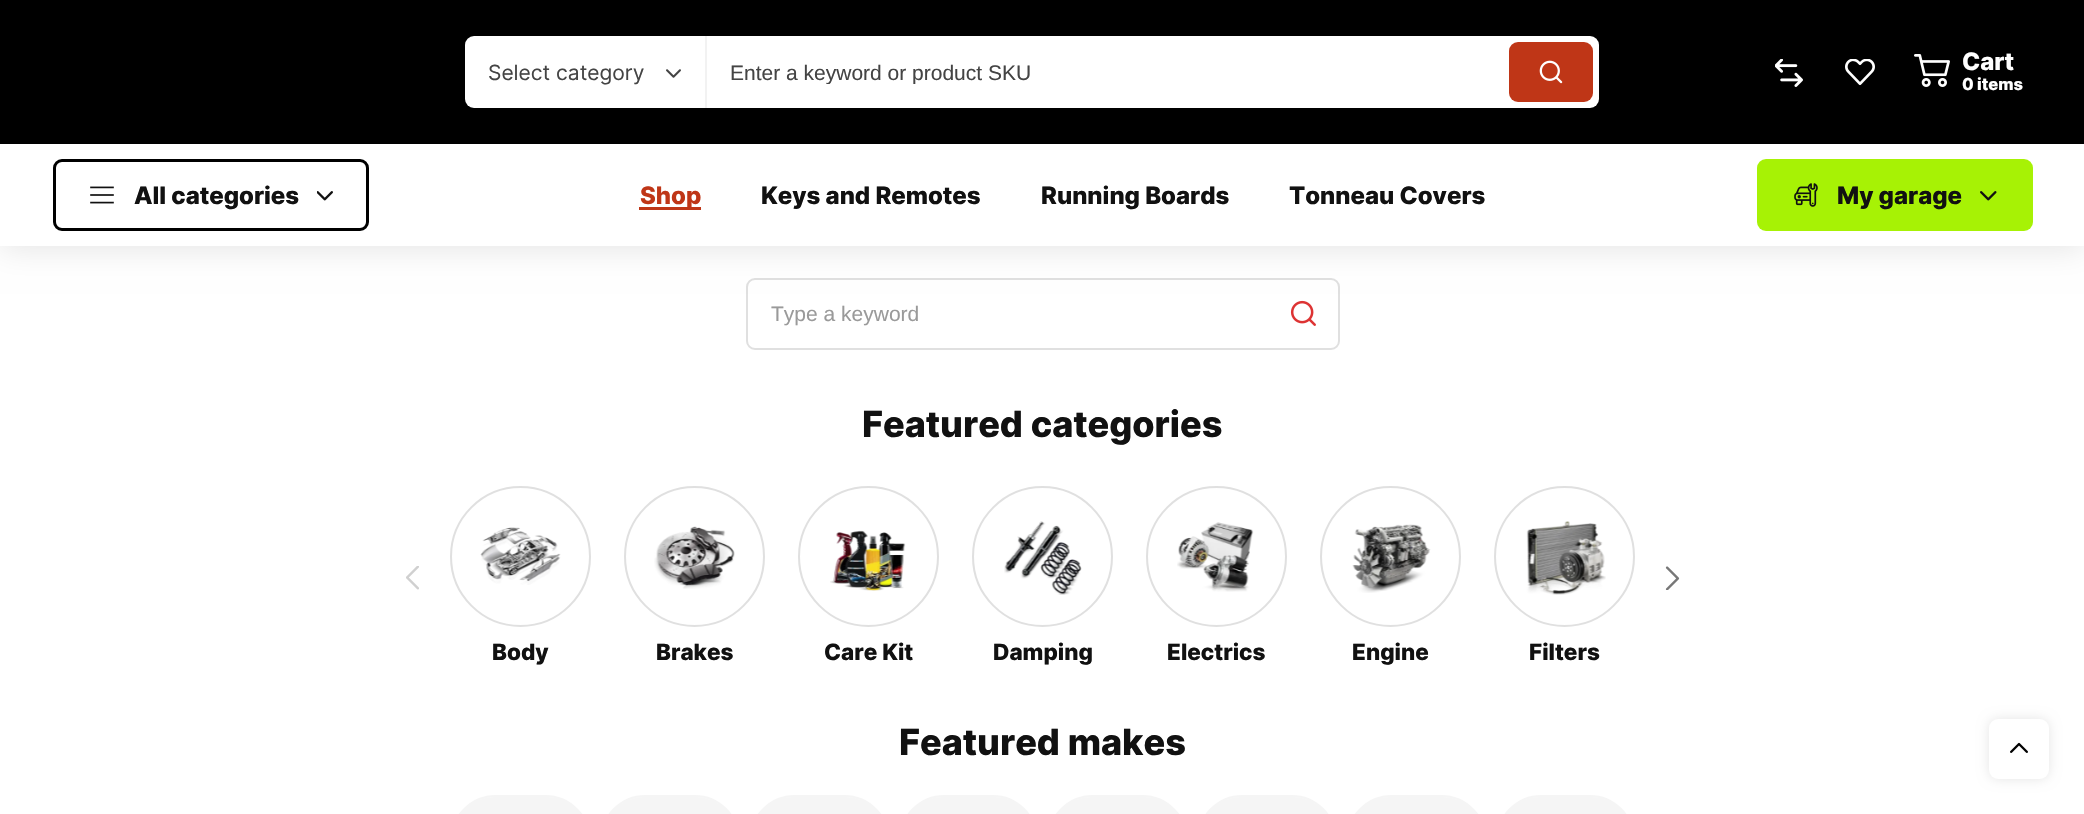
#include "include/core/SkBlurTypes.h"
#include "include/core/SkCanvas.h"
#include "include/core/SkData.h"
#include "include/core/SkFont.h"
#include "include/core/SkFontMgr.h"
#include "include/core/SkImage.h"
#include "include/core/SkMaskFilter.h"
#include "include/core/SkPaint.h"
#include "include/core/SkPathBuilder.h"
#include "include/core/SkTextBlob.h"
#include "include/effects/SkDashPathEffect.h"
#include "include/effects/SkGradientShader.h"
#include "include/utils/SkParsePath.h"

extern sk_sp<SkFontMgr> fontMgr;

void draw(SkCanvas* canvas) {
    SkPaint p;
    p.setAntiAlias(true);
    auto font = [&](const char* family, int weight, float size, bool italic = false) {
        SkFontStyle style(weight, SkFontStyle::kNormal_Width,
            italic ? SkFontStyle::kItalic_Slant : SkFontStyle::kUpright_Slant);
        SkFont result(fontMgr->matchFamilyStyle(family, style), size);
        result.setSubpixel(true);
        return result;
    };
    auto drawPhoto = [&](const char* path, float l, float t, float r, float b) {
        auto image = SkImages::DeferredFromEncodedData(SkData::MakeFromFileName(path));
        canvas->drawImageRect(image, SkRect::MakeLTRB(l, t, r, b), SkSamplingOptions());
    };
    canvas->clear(0xFFFFFFFF);
    p.setStyle(SkPaint::kStroke_Style);
    p.setStrokeWidth(2);
    p.setColor(0xFFE0E0E0);
    canvas->drawRoundRect(SkRect::MakeLTRB(747, 279, 1339, 349), 8, 8, p);
    p.setStyle(SkPaint::kFill_Style);
    p.setColor(0x1A000000);
    p.setMaskFilter(SkMaskFilter::MakeBlur(kNormal_SkBlurStyle, 15));
    canvas->drawRect(SkRect::MakeLTRB(0, 3, 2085, 249), p);
    p.setMaskFilter(nullptr);
    p.setColor(0xFF000000);
    canvas->drawRect(SkRect::MakeLTRB(0, 0, 2084, 144), p);
    p.setColor(0xFFFFFFFF);
    canvas->drawRoundRect(SkRect::MakeLTRB(465, 36, 1599, 108), 9, 9, p);
    auto font1 = font("Inter", 400, 21);
    p.setColor(0xFF444444);
    canvas->drawString("Select category", 488, 80, font1, p);
    drawPhoto("media/1.png", 666, 69, 681, 78);
    p.setColor(0xFFF2F2F2);
    canvas->drawRect(SkRect::MakeLTRB(705, 36, 707, 108), p);
    canvas->save();
    canvas->clipRect(SkRect::MakeLTRB(731, 60, 1451, 84));
    auto font2 = font("Liberation Sans", 400, 21);
    p.setColor(0xFF444444);
    canvas->drawString("Enter a keyword or product SKU", 730, 80, font2, p);
    canvas->restore();
    p.setColor(0xFFBF3617);
    canvas->drawRoundRect(SkRect::MakeLTRB(1509, 42, 1593, 102), 9, 9, p);
    drawPhoto("media/2.png", 1539, 60, 1563, 84);
    drawPhoto("media/3.png", 1775, 59, 1803, 87);
    drawPhoto("media/4.png", 1845, 59, 1875, 86);
    drawPhoto("media/5.png", 1914, 54, 1950, 87);
    auto font3 = font("Inter", 800, 24);
    p.setColor(0xFFFFFFFF);
    canvas->drawString("Cart", 1962, 70, font3, p);
    auto font4 = font("Inter", 800, 16.5f);
    canvas->drawString("0", 1962, 90, font4, p);
    canvas->drawString("items", 1977, 90, font4, p);
    canvas->drawRect(SkRect::MakeLTRB(0, 144, 2084, 246), p);
    p.setStyle(SkPaint::kStroke_Style);
    p.setStrokeWidth(3);
    p.setColor(0xFF000000);
    canvas->drawRoundRect(SkRect::MakeLTRB(54.5f, 160.5f, 367.5f, 229.5f), 7.5f, 7.5f, p);
    drawPhoto("media/6.png", 90, 186, 114, 204);
    p.setStyle(SkPaint::kFill_Style);
    p.setColor(0xFF111111);
    canvas->drawString("All categories", 134, 204, font3, p);
    drawPhoto("media/7.png", 317, 191, 333, 201);
    p.setColor(0xFFBF3617);
    canvas->drawString("Shop", 640, 204, font3, p);
    canvas->drawRect(SkRect::MakeLTRB(639, 207, 701, 210), p);
    p.setColor(0xFF111111);
    {
        const struct { const char* s; float x, y; } items[] = {
            {"Keys and Remotes", 761, 204},
            {"Running Boards", 1041, 204},
            {"Tonneau Covers", 1289, 204},
        };
        for (auto [s, x, y] : items) {
            canvas->drawString(s, x, y, font3, p);
        }
    }
    p.setColor(0xFFA7F205);
    canvas->drawRoundRect(SkRect::MakeLTRB(1757, 159, 2033, 231), 9, 9, p);
    drawPhoto("media/8.png", 1794, 183, 1818, 207);
    p.setColor(0xFF111111);
    canvas->drawString("My garage", 1837, 204, font3, p);
    drawPhoto("media/9.png", 1980, 191, 1997, 201);
    p.setColor(0xFF9A9A9A);
    canvas->drawString("Type a keyword", 771, 321, font2, p);
    drawPhoto("media/10.png", 1290, 300, 1316, 326);
    auto font5 = font("Inter", 800, 36);
    p.setColor(0xFF111111);
    canvas->drawString("Featured categories", 862, 437, font5, p);
    drawPhoto("media/11.png", 406, 566, 419, 590);
    drawPhoto("media/12.png", 1665, 566, 1680, 590);
    p.setStyle(SkPaint::kStroke_Style);
    p.setStrokeWidth(2);
    p.setColor(0xFFE0E0E0);
    canvas->drawCircle(520.5f, 556.5f, 69.5f, p);
    drawPhoto("media/13.png", 480, 527, 561, 585);
    auto font6 = font("Inter", 800, 22.5f);
    p.setStyle(SkPaint::kFill_Style);
    p.setColor(0xFF111111);
    canvas->drawString("Body", 492, 660, font6, p);
    p.setStyle(SkPaint::kStroke_Style);
    p.setColor(0xFFE0E0E0);
    canvas->drawCircle(694.5f, 556.5f, 69.5f, p);
    drawPhoto("media/14.png", 654, 526, 735, 589);
    p.setStyle(SkPaint::kFill_Style);
    p.setColor(0xFF111111);
    canvas->drawString("Brakes", 656, 660, font6, p);
    p.setStyle(SkPaint::kStroke_Style);
    p.setColor(0xFFE0E0E0);
    canvas->drawCircle(868.5f, 556.5f, 69.5f, p);
    drawPhoto("media/15.png", 830, 530, 906, 591);
    p.setStyle(SkPaint::kFill_Style);
    p.setColor(0xFF111111);
    canvas->drawString("Care Kit", 824, 660, font6, p);
    p.setStyle(SkPaint::kStroke_Style);
    p.setColor(0xFFE0E0E0);
    canvas->drawCircle(1042.5f, 556.5f, 69.5f, p);
    drawPhoto("media/16.png", 1004, 521, 1082, 595);
    p.setStyle(SkPaint::kFill_Style);
    p.setColor(0xFF111111);
    canvas->drawString("Damping", 993, 660, font6, p);
    p.setStyle(SkPaint::kStroke_Style);
    p.setColor(0xFFE0E0E0);
    canvas->drawCircle(1216.5f, 556.5f, 69.5f, p);
    drawPhoto("media/17.png", 1177, 522, 1254, 592);
    p.setStyle(SkPaint::kFill_Style);
    p.setColor(0xFF111111);
    canvas->drawString("Electrics", 1167, 660, font6, p);
    p.setStyle(SkPaint::kStroke_Style);
    p.setColor(0xFFE0E0E0);
    canvas->drawCircle(1390.5f, 556.5f, 69.5f, p);
    drawPhoto("media/18.png", 1352, 524, 1431, 593);
    p.setStyle(SkPaint::kFill_Style);
    p.setColor(0xFF111111);
    canvas->drawString("Engine", 1352, 660, font6, p);
    p.setStyle(SkPaint::kStroke_Style);
    p.setColor(0xFFE0E0E0);
    canvas->drawCircle(1564.5f, 556.5f, 69.5f, p);
    drawPhoto("media/19.png", 1526, 521, 1606, 595);
    p.setStyle(SkPaint::kFill_Style);
    p.setColor(0xFF111111);
    canvas->drawString("Filters", 1529, 660, font6, p);
    canvas->drawString("Featured makes", 899, 755, font5, p);
    p.setColor(0xFFF5F5F5);
    canvas->drawRoundRect(SkRect::MakeLTRB(452, 797, 590, 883), 69, 69, p);
    p.setStyle(SkPaint::kStroke_Style);
    canvas->drawRoundRect(SkRect::MakeLTRB(451, 796, 590, 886), 69.5f, 69.5f, p);
    p.setStyle(SkPaint::kFill_Style);
    canvas->drawRoundRect(SkRect::MakeLTRB(602, 797, 738, 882), 68, 68, p);
    p.setStyle(SkPaint::kStroke_Style);
    canvas->drawRoundRect(SkRect::MakeLTRB(601, 796, 739, 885), 69, 69, p);
    p.setStyle(SkPaint::kFill_Style);
    canvas->drawRoundRect(SkRect::MakeLTRB(750, 797, 888, 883), 69, 69, p);
    p.setStyle(SkPaint::kStroke_Style);
    canvas->drawRoundRect(SkRect::MakeLTRB(750, 796, 889, 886), 69.5f, 69.5f, p);
    p.setStyle(SkPaint::kFill_Style);
    canvas->drawRoundRect(SkRect::MakeLTRB(900, 797, 1037, 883), 68.5f, 68.5f, p);
    p.setStyle(SkPaint::kStroke_Style);
    canvas->drawRoundRect(SkRect::MakeLTRB(900, 796, 1037, 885), 68.5f, 68.5f, p);
    p.setStyle(SkPaint::kFill_Style);
    canvas->drawRoundRect(SkRect::MakeLTRB(1049, 797, 1187, 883), 69, 69, p);
    p.setStyle(SkPaint::kStroke_Style);
    canvas->drawRoundRect(SkRect::MakeLTRB(1048, 796, 1187, 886), 69.5f, 69.5f, p);
    p.setStyle(SkPaint::kFill_Style);
    canvas->drawRoundRect(SkRect::MakeLTRB(1199, 797, 1335, 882), 68, 68, p);
    p.setStyle(SkPaint::kStroke_Style);
    canvas->drawRoundRect(SkRect::MakeLTRB(1198, 796, 1336, 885), 69, 69, p);
    p.setStyle(SkPaint::kFill_Style);
    canvas->drawRoundRect(SkRect::MakeLTRB(1347, 797, 1485, 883), 69, 69, p);
    p.setStyle(SkPaint::kStroke_Style);
    canvas->drawRoundRect(SkRect::MakeLTRB(1347, 796, 1486, 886), 69.5f, 69.5f, p);
    p.setStyle(SkPaint::kFill_Style);
    canvas->drawRoundRect(SkRect::MakeLTRB(1497, 797, 1634, 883), 68.5f, 68.5f, p);
    p.setStyle(SkPaint::kStroke_Style);
    canvas->drawRoundRect(SkRect::MakeLTRB(1497, 796, 1634, 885), 68.5f, 68.5f, p);
    p.setStyle(SkPaint::kFill_Style);
    p.setColor(0x1A000000);
    p.setMaskFilter(SkMaskFilter::MakeBlur(kNormal_SkBlurStyle, 6));
    canvas->drawRoundRect(SkRect::MakeLTRB(1989, 719, 2049, 779), 9, 9, p);
    p.setMaskFilter(nullptr);
    p.setColor(0xFFFFFFFF);
    canvas->drawRoundRect(SkRect::MakeLTRB(1989, 719, 2049, 779), 9, 9, p);
    drawPhoto("media/20.png", 2010, 742, 2028, 753);
}
